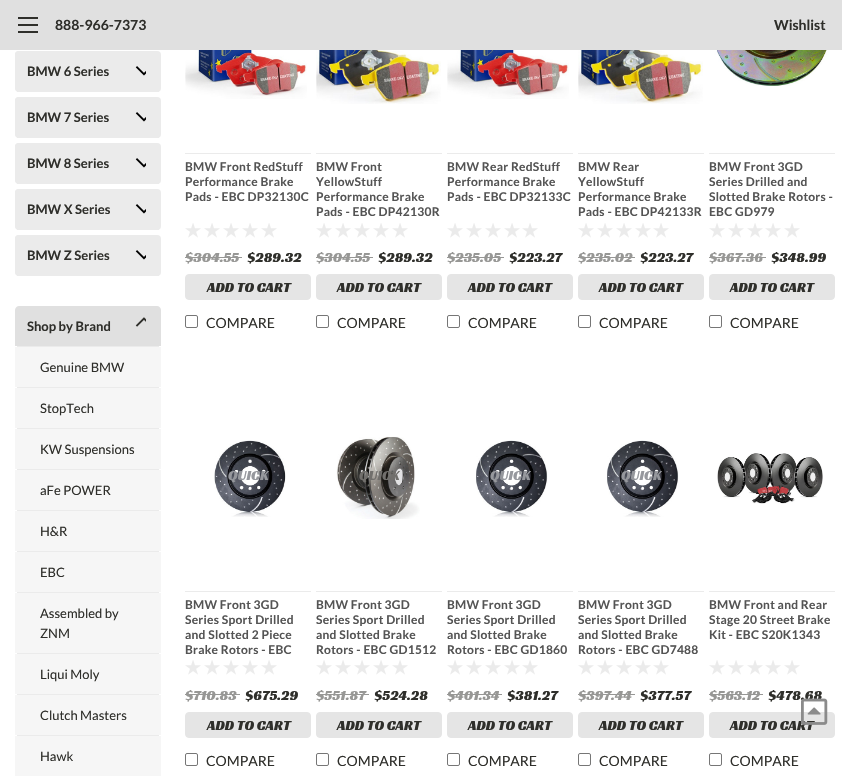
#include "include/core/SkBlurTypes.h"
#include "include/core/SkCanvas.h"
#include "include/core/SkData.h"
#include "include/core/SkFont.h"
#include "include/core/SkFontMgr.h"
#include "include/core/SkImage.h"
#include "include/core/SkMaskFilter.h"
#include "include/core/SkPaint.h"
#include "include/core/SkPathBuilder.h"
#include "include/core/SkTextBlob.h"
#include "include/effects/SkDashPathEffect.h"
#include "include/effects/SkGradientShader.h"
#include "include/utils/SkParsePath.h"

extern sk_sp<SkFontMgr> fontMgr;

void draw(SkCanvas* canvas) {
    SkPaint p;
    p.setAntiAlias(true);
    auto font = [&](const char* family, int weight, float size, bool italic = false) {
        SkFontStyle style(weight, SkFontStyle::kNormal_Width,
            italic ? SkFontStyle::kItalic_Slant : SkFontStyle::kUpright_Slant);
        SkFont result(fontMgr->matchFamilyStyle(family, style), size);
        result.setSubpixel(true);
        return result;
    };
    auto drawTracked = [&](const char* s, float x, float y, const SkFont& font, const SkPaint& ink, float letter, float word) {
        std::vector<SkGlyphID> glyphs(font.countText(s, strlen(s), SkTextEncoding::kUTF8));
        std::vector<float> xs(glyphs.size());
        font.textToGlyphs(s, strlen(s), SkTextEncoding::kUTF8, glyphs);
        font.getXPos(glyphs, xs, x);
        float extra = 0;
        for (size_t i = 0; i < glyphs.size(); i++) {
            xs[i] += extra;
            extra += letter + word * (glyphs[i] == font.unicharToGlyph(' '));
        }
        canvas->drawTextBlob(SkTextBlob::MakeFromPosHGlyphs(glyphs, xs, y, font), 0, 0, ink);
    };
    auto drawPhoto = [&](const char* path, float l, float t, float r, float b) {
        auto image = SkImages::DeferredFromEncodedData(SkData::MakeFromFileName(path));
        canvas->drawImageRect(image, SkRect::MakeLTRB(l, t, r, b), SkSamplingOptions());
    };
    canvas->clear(0xFFFFFFFF);
    {
        const struct { float l, t, r, b; SkColor color; } items[] = {
            {0, 0, 842, 50, 0xFFE0E0E0},
            {18, 24, 38, 26, 0xFF2F2F2B},
            {18, 17, 38, 19, 0xFF2F2F2B},
            {18, 31, 38, 33, 0xFF2F2F2B},
        };
        for (auto [l, t, r, b, color] : items) {
            p.setColor(color);
            canvas->drawRect(SkRect::MakeLTRB(l, t, r, b), p);
        }
    }
    auto font1 = font("Lato", 700, 14);
    canvas->drawString("888-966-7373", 55, 30, font1, p);
    canvas->drawString("Wishlist", 774, 30, font1, p);
    p.setColor(0xFFEBEBEB);
    canvas->drawRoundRect(SkRect::MakeLTRB(15, 51, 161, 92), 4, 4, p);
    canvas->drawRect(SkRect::MakeLTRB(17, 91, 159, 92), p);
    canvas->drawRoundRect(SkRect::MakeLTRB(15, 51, 139, 91), 4, 4, p);
    auto font2 = font("Lato", 700, 13);
    p.setColor(0xFF2F2F2B);
    canvas->drawString("BMW 6 Series", 27, 76, font2, p);
    drawPhoto("media/1.png", 135, 66, 146, 76);
    p.setColor(0xFFEBEBEB);
    canvas->drawRoundRect(SkRect::MakeLTRB(15, 97, 161, 138), 4, 4, p);
    canvas->drawRect(SkRect::MakeLTRB(17, 137, 159, 138), p);
    canvas->drawRoundRect(SkRect::MakeLTRB(15, 97, 139, 137), 4, 4, p);
    p.setColor(0xFF2F2F2B);
    canvas->drawString("BMW 7 Series", 27, 122, font2, p);
    drawPhoto("media/1.png", 135, 112, 146, 122);
    p.setColor(0xFFEBEBEB);
    canvas->drawRoundRect(SkRect::MakeLTRB(15, 143, 161, 184), 4, 4, p);
    canvas->drawRect(SkRect::MakeLTRB(17, 183, 159, 184), p);
    canvas->drawRoundRect(SkRect::MakeLTRB(15, 143, 139, 183), 4, 4, p);
    p.setColor(0xFF2F2F2B);
    canvas->drawString("BMW 8 Series", 27, 168, font2, p);
    drawPhoto("media/1.png", 135, 158, 146, 168);
    p.setColor(0xFFEBEBEB);
    canvas->drawRoundRect(SkRect::MakeLTRB(15, 189, 161, 230), 4, 4, p);
    canvas->drawRect(SkRect::MakeLTRB(17, 229, 159, 230), p);
    canvas->drawRoundRect(SkRect::MakeLTRB(15, 189, 139, 229), 4, 4, p);
    p.setColor(0xFF2F2F2B);
    canvas->drawString("BMW X Series", 27, 214, font2, p);
    drawPhoto("media/1.png", 135, 204, 146, 214);
    p.setColor(0xFFEBEBEB);
    canvas->drawRoundRect(SkRect::MakeLTRB(15, 235, 161, 276), 4, 4, p);
    canvas->drawRect(SkRect::MakeLTRB(17, 275, 159, 276), p);
    canvas->drawRoundRect(SkRect::MakeLTRB(15, 235, 139, 275), 4, 4, p);
    p.setColor(0xFF2F2F2B);
    canvas->drawString("BMW Z Series", 27, 260, font2, p);
    drawPhoto("media/1.png", 135, 250, 146, 260);
    p.setColor(0xFFEBEBEB);
    canvas->drawRect(SkRect::MakeLTRB(17, 346, 159, 347), p);
    p.setColor(0xFFE0E0E0);
    canvas->drawPath(SkPathBuilder().moveTo(19, 306).lineTo(157, 306).cubicTo(159, 306, 161, 308, 161, 310).lineTo(161, 346).lineTo(15, 346).lineTo(15, 310).cubicTo(15, 308, 17, 306, 19, 306).close().detach(), p);
    p.setColor(0xFF2F2F2B);
    canvas->drawString("Shop by Brand", 27, 331, font2, p);
    drawPhoto("media/2.png", 135, 317, 146, 327);
    p.setColor(0xFFEBEBEB);
    canvas->drawRect(SkRect::MakeLTRB(17, 387, 159, 388), p);
    p.setColor(0xFFF6F6F6);
    canvas->drawRect(SkRect::MakeLTRB(15, 347, 161, 387), p);
    auto font3 = font("Lato", 400, 13);
    p.setColor(0xFF2F2F2B);
    canvas->drawString("Genuine BMW", 40, 372, font3, p);
    p.setColor(0xFFEBEBEB);
    canvas->drawRect(SkRect::MakeLTRB(17, 428, 159, 429), p);
    p.setColor(0xFFF6F6F6);
    canvas->drawRect(SkRect::MakeLTRB(15, 388, 161, 428), p);
    p.setColor(0xFF2F2F2B);
    canvas->drawString("StopTech", 40, 413, font3, p);
    p.setColor(0xFFEBEBEB);
    canvas->drawRect(SkRect::MakeLTRB(17, 469, 159, 470), p);
    p.setColor(0xFFF6F6F6);
    canvas->drawRect(SkRect::MakeLTRB(15, 429, 161, 469), p);
    p.setColor(0xFF2F2F2B);
    canvas->drawString("KW Suspensions", 40, 454, font3, p);
    p.setColor(0xFFEBEBEB);
    canvas->drawRect(SkRect::MakeLTRB(17, 510, 159, 511), p);
    p.setColor(0xFFF6F6F6);
    canvas->drawRect(SkRect::MakeLTRB(15, 470, 161, 510), p);
    p.setColor(0xFF2F2F2B);
    canvas->drawString("aFe POWER", 40, 495, font3, p);
    p.setColor(0xFFEBEBEB);
    canvas->drawRect(SkRect::MakeLTRB(17, 551, 159, 552), p);
    p.setColor(0xFFF6F6F6);
    canvas->drawRect(SkRect::MakeLTRB(15, 511, 161, 551), p);
    p.setColor(0xFF2F2F2B);
    canvas->drawString("H&R", 40, 536, font3, p);
    p.setColor(0xFFEBEBEB);
    canvas->drawRect(SkRect::MakeLTRB(17, 592, 159, 593), p);
    p.setColor(0xFFF6F6F6);
    canvas->drawRect(SkRect::MakeLTRB(15, 552, 161, 592), p);
    p.setColor(0xFF2F2F2B);
    canvas->drawString("EBC", 40, 577, font3, p);
    p.setColor(0xFFEBEBEB);
    canvas->drawRect(SkRect::MakeLTRB(17, 653, 159, 654), p);
    p.setColor(0xFFF6F6F6);
    canvas->drawRect(SkRect::MakeLTRB(15, 593, 161, 653), p);
    p.setColor(0xFF2F2F2B);
    canvas->drawString("Assembled by", 40, 618, font3, p);
    canvas->drawString("ZNM", 40, 638, font3, p);
    p.setColor(0xFFEBEBEB);
    canvas->drawRect(SkRect::MakeLTRB(17, 694, 159, 695), p);
    p.setColor(0xFFF6F6F6);
    canvas->drawRect(SkRect::MakeLTRB(15, 654, 161, 694), p);
    p.setColor(0xFF2F2F2B);
    canvas->drawString("Liqui Moly", 40, 679, font3, p);
    p.setColor(0xFFEBEBEB);
    canvas->drawRect(SkRect::MakeLTRB(17, 735, 159, 736), p);
    p.setColor(0xFFF6F6F6);
    canvas->drawRect(SkRect::MakeLTRB(15, 695, 161, 735), p);
    p.setColor(0xFF2F2F2B);
    canvas->drawString("Clutch Masters", 40, 720, font3, p);
    p.setColor(0xFFF6F6F6);
    canvas->drawRect(SkRect::MakeLTRB(15, 736, 161, 776), p);
    p.setColor(0xFF2F2F2B);
    canvas->drawString("Hawk", 40, 761, font3, p);
    drawPhoto("media/3.png", 185, 50, 307, 99);
    p.setColor(0xFFEBEBEB);
    canvas->drawRect(SkRect::MakeLTRB(185, 153, 311, 154), p);
    auto font4 = font("Lato", 700, 12);
    p.setColor(0xFF545454);
    {
        const struct { const char* s; float x, y; } items[] = {
            {"BMW Front RedStuff", 185, 171},
            {"Performance Brake", 185, 186},
            {"Pads - EBC DP32130C", 185, 201},
        };
        for (auto [s, x, y] : items) {
            drawTracked(s, x, y, font4, p, 0.25f, 0);
        }
    }
    drawPhoto("media/4.png", 185, 223, 201, 238);
    drawPhoto("media/4.png", 204, 223, 220, 238);
    drawPhoto("media/4.png", 223, 223, 239, 238);
    drawPhoto("media/4.png", 242, 223, 258, 238);
    drawPhoto("media/4.png", 261, 223, 277, 238);
    auto font5 = font("Racing Sans One", 400, 14);
    p.setColor(0xFF979795);
    canvas->drawString("$304.55", 185, 262, font5, p);
    canvas->drawRect(SkRect::MakeLTRB(185, 257, 242, 258), p);
    p.setColor(0xFF2F2F2B);
    canvas->drawString("$289.32", 247, 262, font5, p);
    p.setColor(0xFFE5E5E5);
    canvas->drawRoundRect(SkRect::MakeLTRB(185.5f, 274.5f, 310.5f, 299.5f), 3.5f, 3.5f, p);
    p.setStyle(SkPaint::kStroke_Style);
    p.setStrokeWidth(1);
    canvas->drawRoundRect(SkRect::MakeLTRB(185.5f, 274.5f, 310.5f, 299.5f), 3.5f, 3.5f, p);
    p.setStyle(SkPaint::kFill_Style);
    p.setColor(0xFF2F2F2B);
    canvas->drawString("ADD TO CART", 207, 292, font5, p);
    p.setStyle(SkPaint::kStroke_Style);
    p.setColor(0xFF767676);
    canvas->drawRoundRect(SkRect::MakeLTRB(185.5f, 315.5f, 197.5f, 327.5f), 1.5f, 1.5f, p);
    auto font6 = font("Lato", 400, 14);
    p.setStyle(SkPaint::kFill_Style);
    p.setColor(0xFF2F2F2B);
    canvas->drawString("COMPARE", 206, 328, font6, p);
    drawPhoto("media/5.png", 316, 50, 441, 104);
    p.setColor(0xFFEBEBEB);
    canvas->drawRect(SkRect::MakeLTRB(316, 153, 442, 154), p);
    p.setColor(0xFF545454);
    {
        const struct { const char* s; float x, y; } items[] = {
            {"BMW Front", 316, 171},
            {"YellowStuff", 316, 186},
            {"Performance Brake", 316, 201},
            {"Pads - EBC DP42130R", 316, 216},
        };
        for (auto [s, x, y] : items) {
            drawTracked(s, x, y, font4, p, 0.25f, 0);
        }
    }
    drawPhoto("media/4.png", 316, 223, 332, 238);
    drawPhoto("media/4.png", 335, 223, 351, 238);
    drawPhoto("media/4.png", 354, 223, 370, 238);
    drawPhoto("media/4.png", 373, 223, 389, 238);
    drawPhoto("media/4.png", 392, 223, 408, 238);
    p.setColor(0xFF979795);
    canvas->drawString("$304.55", 316, 262, font5, p);
    canvas->drawRect(SkRect::MakeLTRB(316, 257, 373, 258), p);
    p.setColor(0xFF2F2F2B);
    canvas->drawString("$289.32", 378, 262, font5, p);
    p.setColor(0xFFE5E5E5);
    canvas->drawRoundRect(SkRect::MakeLTRB(316.5f, 274.5f, 441.5f, 299.5f), 3.5f, 3.5f, p);
    p.setStyle(SkPaint::kStroke_Style);
    canvas->drawRoundRect(SkRect::MakeLTRB(316.5f, 274.5f, 441.5f, 299.5f), 3.5f, 3.5f, p);
    p.setStyle(SkPaint::kFill_Style);
    p.setColor(0xFF2F2F2B);
    canvas->drawString("ADD TO CART", 337, 292, font5, p);
    p.setStyle(SkPaint::kStroke_Style);
    p.setColor(0xFF767676);
    canvas->drawRoundRect(SkRect::MakeLTRB(316.5f, 315.5f, 328.5f, 327.5f), 1.5f, 1.5f, p);
    p.setStyle(SkPaint::kFill_Style);
    p.setColor(0xFF2F2F2B);
    canvas->drawString("COMPARE", 337, 328, font6, p);
    drawPhoto("media/6.png", 447, 50, 569, 99);
    p.setColor(0xFFEBEBEB);
    canvas->drawRect(SkRect::MakeLTRB(447, 153, 573, 154), p);
    p.setColor(0xFF545454);
    {
        const struct { const char* s; float x, y; } items[] = {
            {"BMW Rear RedStuff", 447, 171},
            {"Performance Brake", 447, 186},
            {"Pads - EBC DP32133C", 447, 201},
        };
        for (auto [s, x, y] : items) {
            drawTracked(s, x, y, font4, p, 0.25f, 0);
        }
    }
    drawPhoto("media/4.png", 447, 223, 463, 238);
    drawPhoto("media/4.png", 466, 223, 482, 238);
    drawPhoto("media/4.png", 485, 223, 501, 238);
    drawPhoto("media/4.png", 504, 223, 520, 238);
    drawPhoto("media/4.png", 522, 223, 538, 238);
    p.setColor(0xFF979795);
    canvas->drawString("$235.05", 447, 262, font5, p);
    canvas->drawRect(SkRect::MakeLTRB(447, 257, 504, 258), p);
    p.setColor(0xFF2F2F2B);
    canvas->drawString("$223.27", 509, 262, font5, p);
    p.setColor(0xFFE5E5E5);
    canvas->drawRoundRect(SkRect::MakeLTRB(447.5f, 274.5f, 572.5f, 299.5f), 3.5f, 3.5f, p);
    p.setStyle(SkPaint::kStroke_Style);
    canvas->drawRoundRect(SkRect::MakeLTRB(447.5f, 274.5f, 572.5f, 299.5f), 3.5f, 3.5f, p);
    p.setStyle(SkPaint::kFill_Style);
    p.setColor(0xFF2F2F2B);
    canvas->drawString("ADD TO CART", 468, 292, font5, p);
    p.setStyle(SkPaint::kStroke_Style);
    p.setColor(0xFF767676);
    canvas->drawRoundRect(SkRect::MakeLTRB(447.5f, 315.5f, 459.5f, 327.5f), 1.5f, 1.5f, p);
    p.setStyle(SkPaint::kFill_Style);
    p.setColor(0xFF2F2F2B);
    canvas->drawString("COMPARE", 468, 328, font6, p);
    drawPhoto("media/5.png", 578, 50, 703, 104);
    p.setColor(0xFFEBEBEB);
    canvas->drawRect(SkRect::MakeLTRB(578, 153, 704, 154), p);
    p.setColor(0xFF545454);
    {
        const struct { const char* s; float x, y; } items[] = {
            {"BMW Rear", 578, 171},
            {"YellowStuff", 578, 186},
            {"Performance Brake", 578, 201},
            {"Pads - EBC DP42133R", 578, 216},
        };
        for (auto [s, x, y] : items) {
            drawTracked(s, x, y, font4, p, 0.25f, 0);
        }
    }
    drawPhoto("media/4.png", 578, 223, 594, 238);
    drawPhoto("media/4.png", 597, 223, 613, 238);
    drawPhoto("media/4.png", 616, 223, 632, 238);
    drawPhoto("media/4.png", 635, 223, 651, 238);
    drawPhoto("media/4.png", 653, 223, 669, 238);
    p.setColor(0xFF979795);
    canvas->drawString("$235.02", 578, 262, font5, p);
    canvas->drawRect(SkRect::MakeLTRB(578, 257, 635, 258), p);
    p.setColor(0xFF2F2F2B);
    canvas->drawString("$223.27", 640, 262, font5, p);
    p.setColor(0xFFE5E5E5);
    canvas->drawRoundRect(SkRect::MakeLTRB(578.5f, 274.5f, 703.5f, 299.5f), 3.5f, 3.5f, p);
    p.setStyle(SkPaint::kStroke_Style);
    canvas->drawRoundRect(SkRect::MakeLTRB(578.5f, 274.5f, 703.5f, 299.5f), 3.5f, 3.5f, p);
    p.setStyle(SkPaint::kFill_Style);
    p.setColor(0xFF2F2F2B);
    canvas->drawString("ADD TO CART", 599, 292, font5, p);
    p.setStyle(SkPaint::kStroke_Style);
    p.setColor(0xFF767676);
    canvas->drawRoundRect(SkRect::MakeLTRB(578.5f, 315.5f, 590.5f, 327.5f), 1.5f, 1.5f, p);
    p.setStyle(SkPaint::kFill_Style);
    p.setColor(0xFF2F2F2B);
    canvas->drawString("COMPARE", 599, 328, font6, p);
    drawPhoto("media/7.png", 714, 50, 830, 86);
    p.setColor(0xFFEBEBEB);
    canvas->drawRect(SkRect::MakeLTRB(709, 153, 835, 154), p);
    p.setColor(0xFF545454);
    {
        const struct { const char* s; float x, y; } items[] = {
            {"BMW Front 3GD", 709, 171},
            {"Series Drilled and", 709, 186},
            {"Slotted Brake Rotors -", 709, 201},
            {"EBC GD979", 709, 216},
        };
        for (auto [s, x, y] : items) {
            drawTracked(s, x, y, font4, p, 0.25f, 0);
        }
    }
    drawPhoto("media/4.png", 709, 223, 725, 238);
    drawPhoto("media/4.png", 728, 223, 744, 238);
    drawPhoto("media/4.png", 747, 223, 763, 238);
    drawPhoto("media/4.png", 765, 223, 781, 238);
    drawPhoto("media/4.png", 784, 223, 800, 238);
    p.setColor(0xFF979795);
    canvas->drawString("$367.36", 709, 262, font5, p);
    canvas->drawRect(SkRect::MakeLTRB(709, 257, 766, 258), p);
    p.setColor(0xFF2F2F2B);
    canvas->drawString("$348.99", 771, 262, font5, p);
    p.setColor(0xFFE5E5E5);
    canvas->drawRoundRect(SkRect::MakeLTRB(709.5f, 274.5f, 834.5f, 299.5f), 3.5f, 3.5f, p);
    p.setStyle(SkPaint::kStroke_Style);
    canvas->drawRoundRect(SkRect::MakeLTRB(709.5f, 274.5f, 834.5f, 299.5f), 3.5f, 3.5f, p);
    p.setStyle(SkPaint::kFill_Style);
    p.setColor(0xFF2F2F2B);
    canvas->drawString("ADD TO CART", 730, 292, font5, p);
    p.setStyle(SkPaint::kStroke_Style);
    p.setColor(0xFF767676);
    canvas->drawRoundRect(SkRect::MakeLTRB(709.5f, 315.5f, 721.5f, 327.5f), 1.5f, 1.5f, p);
    p.setStyle(SkPaint::kFill_Style);
    p.setColor(0xFF2F2F2B);
    canvas->drawString("COMPARE", 730, 328, font6, p);
    drawPhoto("media/8.png", 214, 440, 286, 517);
    p.setColor(0xFF96989D);
    canvas->drawString("QUICK", 228, 480, font5, p);
    p.setColor(0xFFEBEBEB);
    canvas->drawRect(SkRect::MakeLTRB(185, 591, 311, 592), p);
    p.setColor(0xFF545454);
    {
        const struct { const char* s; float x, y; } items[] = {
            {"BMW Front 3GD", 185, 609},
            {"Series Sport Drilled", 185, 624},
            {"and Slotted 2 Piece", 185, 639},
            {"Brake Rotors - EBC", 185, 654},
        };
        for (auto [s, x, y] : items) {
            drawTracked(s, x, y, font4, p, 0.25f, 0);
        }
    }
    drawPhoto("media/4.png", 185, 660, 201, 675);
    drawPhoto("media/4.png", 204, 660, 220, 675);
    drawPhoto("media/4.png", 223, 660, 239, 675);
    drawPhoto("media/4.png", 242, 660, 258, 675);
    drawPhoto("media/4.png", 261, 660, 277, 675);
    p.setColor(0xFF979795);
    canvas->drawString("$710.83", 185, 700, font5, p);
    canvas->drawRect(SkRect::MakeLTRB(185, 694, 240, 695), p);
    p.setColor(0xFF2F2F2B);
    canvas->drawString("$675.29", 245, 700, font5, p);
    p.setColor(0xFFE5E5E5);
    canvas->drawRoundRect(SkRect::MakeLTRB(185.5f, 712.5f, 310.5f, 737.5f), 3.5f, 3.5f, p);
    p.setStyle(SkPaint::kStroke_Style);
    canvas->drawRoundRect(SkRect::MakeLTRB(185.5f, 712.5f, 310.5f, 737.5f), 3.5f, 3.5f, p);
    p.setStyle(SkPaint::kFill_Style);
    p.setColor(0xFF2F2F2B);
    canvas->drawString("ADD TO CART", 207, 730, font5, p);
    p.setStyle(SkPaint::kStroke_Style);
    p.setColor(0xFF767676);
    canvas->drawRoundRect(SkRect::MakeLTRB(185.5f, 753.5f, 197.5f, 765.5f), 1.5f, 1.5f, p);
    p.setStyle(SkPaint::kFill_Style);
    p.setColor(0xFF2F2F2B);
    canvas->drawString("COMPARE", 206, 766, font6, p);
    drawPhoto("media/9.png", 336, 436, 420, 519);
    p.setColor(0xFF716F6C);
    canvas->drawString("QUICK", 359, 480, font5, p);
    p.setColor(0xFFEBEBEB);
    canvas->drawRect(SkRect::MakeLTRB(316, 591, 442, 592), p);
    p.setColor(0xFF545454);
    {
        const struct { const char* s; float x, y; } items[] = {
            {"BMW Front 3GD", 316, 609},
            {"Series Sport Drilled", 316, 624},
            {"and Slotted Brake", 316, 639},
            {"Rotors - EBC GD1512", 316, 654},
        };
        for (auto [s, x, y] : items) {
            drawTracked(s, x, y, font4, p, 0.25f, 0);
        }
    }
    drawPhoto("media/4.png", 316, 660, 332, 675);
    drawPhoto("media/4.png", 335, 660, 351, 675);
    drawPhoto("media/4.png", 354, 660, 370, 675);
    drawPhoto("media/4.png", 373, 660, 389, 675);
    drawPhoto("media/4.png", 392, 660, 408, 675);
    p.setColor(0xFF979795);
    canvas->drawString("$551.87", 316, 700, font5, p);
    canvas->drawRect(SkRect::MakeLTRB(316, 694, 369, 695), p);
    p.setColor(0xFF2F2F2B);
    canvas->drawString("$524.28", 374, 700, font5, p);
    p.setColor(0xFFE5E5E5);
    canvas->drawRoundRect(SkRect::MakeLTRB(316.5f, 712.5f, 441.5f, 737.5f), 3.5f, 3.5f, p);
    p.setStyle(SkPaint::kStroke_Style);
    canvas->drawRoundRect(SkRect::MakeLTRB(316.5f, 712.5f, 441.5f, 737.5f), 3.5f, 3.5f, p);
    p.setStyle(SkPaint::kFill_Style);
    p.setColor(0xFF2F2F2B);
    canvas->drawString("ADD TO CART", 337, 730, font5, p);
    p.setStyle(SkPaint::kStroke_Style);
    p.setColor(0xFF767676);
    canvas->drawRoundRect(SkRect::MakeLTRB(316.5f, 753.5f, 328.5f, 765.5f), 1.5f, 1.5f, p);
    p.setStyle(SkPaint::kFill_Style);
    p.setColor(0xFF2F2F2B);
    canvas->drawString("COMPARE", 337, 766, font6, p);
    drawPhoto("media/10.png", 476, 440, 548, 517);
    p.setColor(0xFF96989D);
    canvas->drawString("QUICK", 490, 480, font5, p);
    p.setColor(0xFFEBEBEB);
    canvas->drawRect(SkRect::MakeLTRB(447, 591, 573, 592), p);
    p.setColor(0xFF545454);
    {
        const struct { const char* s; float x, y; } items[] = {
            {"BMW Front 3GD", 447, 609},
            {"Series Sport Drilled", 447, 624},
            {"and Slotted Brake", 447, 639},
            {"Rotors - EBC GD1860", 447, 654},
        };
        for (auto [s, x, y] : items) {
            drawTracked(s, x, y, font4, p, 0.25f, 0);
        }
    }
    drawPhoto("media/4.png", 447, 660, 463, 675);
    drawPhoto("media/4.png", 466, 660, 482, 675);
    drawPhoto("media/4.png", 485, 660, 501, 675);
    drawPhoto("media/4.png", 504, 660, 520, 675);
    drawPhoto("media/4.png", 522, 660, 538, 675);
    p.setColor(0xFF979795);
    canvas->drawString("$401.34", 447, 700, font5, p);
    canvas->drawRect(SkRect::MakeLTRB(447, 694, 502, 695), p);
    p.setColor(0xFF2F2F2B);
    canvas->drawString("$381.27", 507, 700, font5, p);
    p.setColor(0xFFE5E5E5);
    canvas->drawRoundRect(SkRect::MakeLTRB(447.5f, 712.5f, 572.5f, 737.5f), 3.5f, 3.5f, p);
    p.setStyle(SkPaint::kStroke_Style);
    canvas->drawRoundRect(SkRect::MakeLTRB(447.5f, 712.5f, 572.5f, 737.5f), 3.5f, 3.5f, p);
    p.setStyle(SkPaint::kFill_Style);
    p.setColor(0xFF2F2F2B);
    canvas->drawString("ADD TO CART", 468, 730, font5, p);
    p.setStyle(SkPaint::kStroke_Style);
    p.setColor(0xFF767676);
    canvas->drawRoundRect(SkRect::MakeLTRB(447.5f, 753.5f, 459.5f, 765.5f), 1.5f, 1.5f, p);
    p.setStyle(SkPaint::kFill_Style);
    p.setColor(0xFF2F2F2B);
    canvas->drawString("COMPARE", 468, 766, font6, p);
    drawPhoto("media/11.png", 607, 440, 679, 517);
    p.setColor(0xFF96989D);
    canvas->drawString("QUICK", 621, 480, font5, p);
    p.setColor(0xFFEBEBEB);
    canvas->drawRect(SkRect::MakeLTRB(578, 591, 704, 592), p);
    p.setColor(0xFF545454);
    {
        const struct { const char* s; float x, y; } items[] = {
            {"BMW Front 3GD", 578, 609},
            {"Series Sport Drilled", 578, 624},
            {"and Slotted Brake", 578, 639},
            {"Rotors - EBC GD7488", 578, 654},
        };
        for (auto [s, x, y] : items) {
            drawTracked(s, x, y, font4, p, 0.25f, 0);
        }
    }
    drawPhoto("media/4.png", 578, 660, 594, 675);
    drawPhoto("media/4.png", 597, 660, 613, 675);
    drawPhoto("media/4.png", 616, 660, 632, 675);
    drawPhoto("media/4.png", 635, 660, 651, 675);
    drawPhoto("media/4.png", 653, 660, 669, 675);
    p.setColor(0xFF979795);
    canvas->drawString("$397.44", 578, 700, font5, p);
    canvas->drawRect(SkRect::MakeLTRB(578, 694, 635, 695), p);
    p.setColor(0xFF2F2F2B);
    canvas->drawString("$377.57", 640, 700, font5, p);
    p.setColor(0xFFE5E5E5);
    canvas->drawRoundRect(SkRect::MakeLTRB(578.5f, 712.5f, 703.5f, 737.5f), 3.5f, 3.5f, p);
    p.setStyle(SkPaint::kStroke_Style);
    canvas->drawRoundRect(SkRect::MakeLTRB(578.5f, 712.5f, 703.5f, 737.5f), 3.5f, 3.5f, p);
    p.setStyle(SkPaint::kFill_Style);
    p.setColor(0xFF2F2F2B);
    canvas->drawString("ADD TO CART", 599, 730, font5, p);
    p.setStyle(SkPaint::kStroke_Style);
    p.setColor(0xFF767676);
    canvas->drawRoundRect(SkRect::MakeLTRB(578.5f, 753.5f, 590.5f, 765.5f), 1.5f, 1.5f, p);
    p.setStyle(SkPaint::kFill_Style);
    p.setColor(0xFF2F2F2B);
    canvas->drawString("COMPARE", 599, 766, font6, p);
    drawPhoto("media/12.png", 717, 453, 823, 504);
    p.setColor(0xFFEBEBEB);
    canvas->drawRect(SkRect::MakeLTRB(709, 591, 835, 592), p);
    p.setColor(0xFF545454);
    {
        const struct { const char* s; float x, y; } items[] = {
            {"BMW Front and Rear", 709, 609},
            {"Stage 20 Street Brake", 709, 624},
            {"Kit - EBC S20K1343", 709, 639},
        };
        for (auto [s, x, y] : items) {
            drawTracked(s, x, y, font4, p, 0.25f, 0);
        }
    }
    drawPhoto("media/4.png", 709, 660, 725, 675);
    drawPhoto("media/4.png", 728, 660, 744, 675);
    drawPhoto("media/4.png", 747, 660, 763, 675);
    drawPhoto("media/4.png", 765, 660, 781, 675);
    drawPhoto("media/4.png", 784, 660, 800, 675);
    p.setColor(0xFF979795);
    canvas->drawString("$563.12", 709, 700, font5, p);
    canvas->drawRect(SkRect::MakeLTRB(709, 694, 763, 695), p);
    p.setColor(0xFF2F2F2B);
    canvas->drawString("$478.68", 768, 700, font5, p);
    p.setColor(0xFFE5E5E5);
    canvas->drawRoundRect(SkRect::MakeLTRB(709.5f, 712.5f, 834.5f, 737.5f), 3.5f, 3.5f, p);
    p.setStyle(SkPaint::kStroke_Style);
    canvas->drawRoundRect(SkRect::MakeLTRB(709.5f, 712.5f, 834.5f, 737.5f), 3.5f, 3.5f, p);
    p.setStyle(SkPaint::kFill_Style);
    p.setColor(0xFF2F2F2B);
    canvas->drawString("ADD TO CART", 730, 730, font5, p);
    p.setStyle(SkPaint::kStroke_Style);
    p.setColor(0xFF767676);
    canvas->drawRoundRect(SkRect::MakeLTRB(709.5f, 753.5f, 721.5f, 765.5f), 1.5f, 1.5f, p);
    p.setStyle(SkPaint::kFill_Style);
    p.setColor(0xFF2F2F2B);
    canvas->drawString("COMPARE", 730, 766, font6, p);
    drawPhoto("media/13.png", 801, 698, 828, 725);
}
